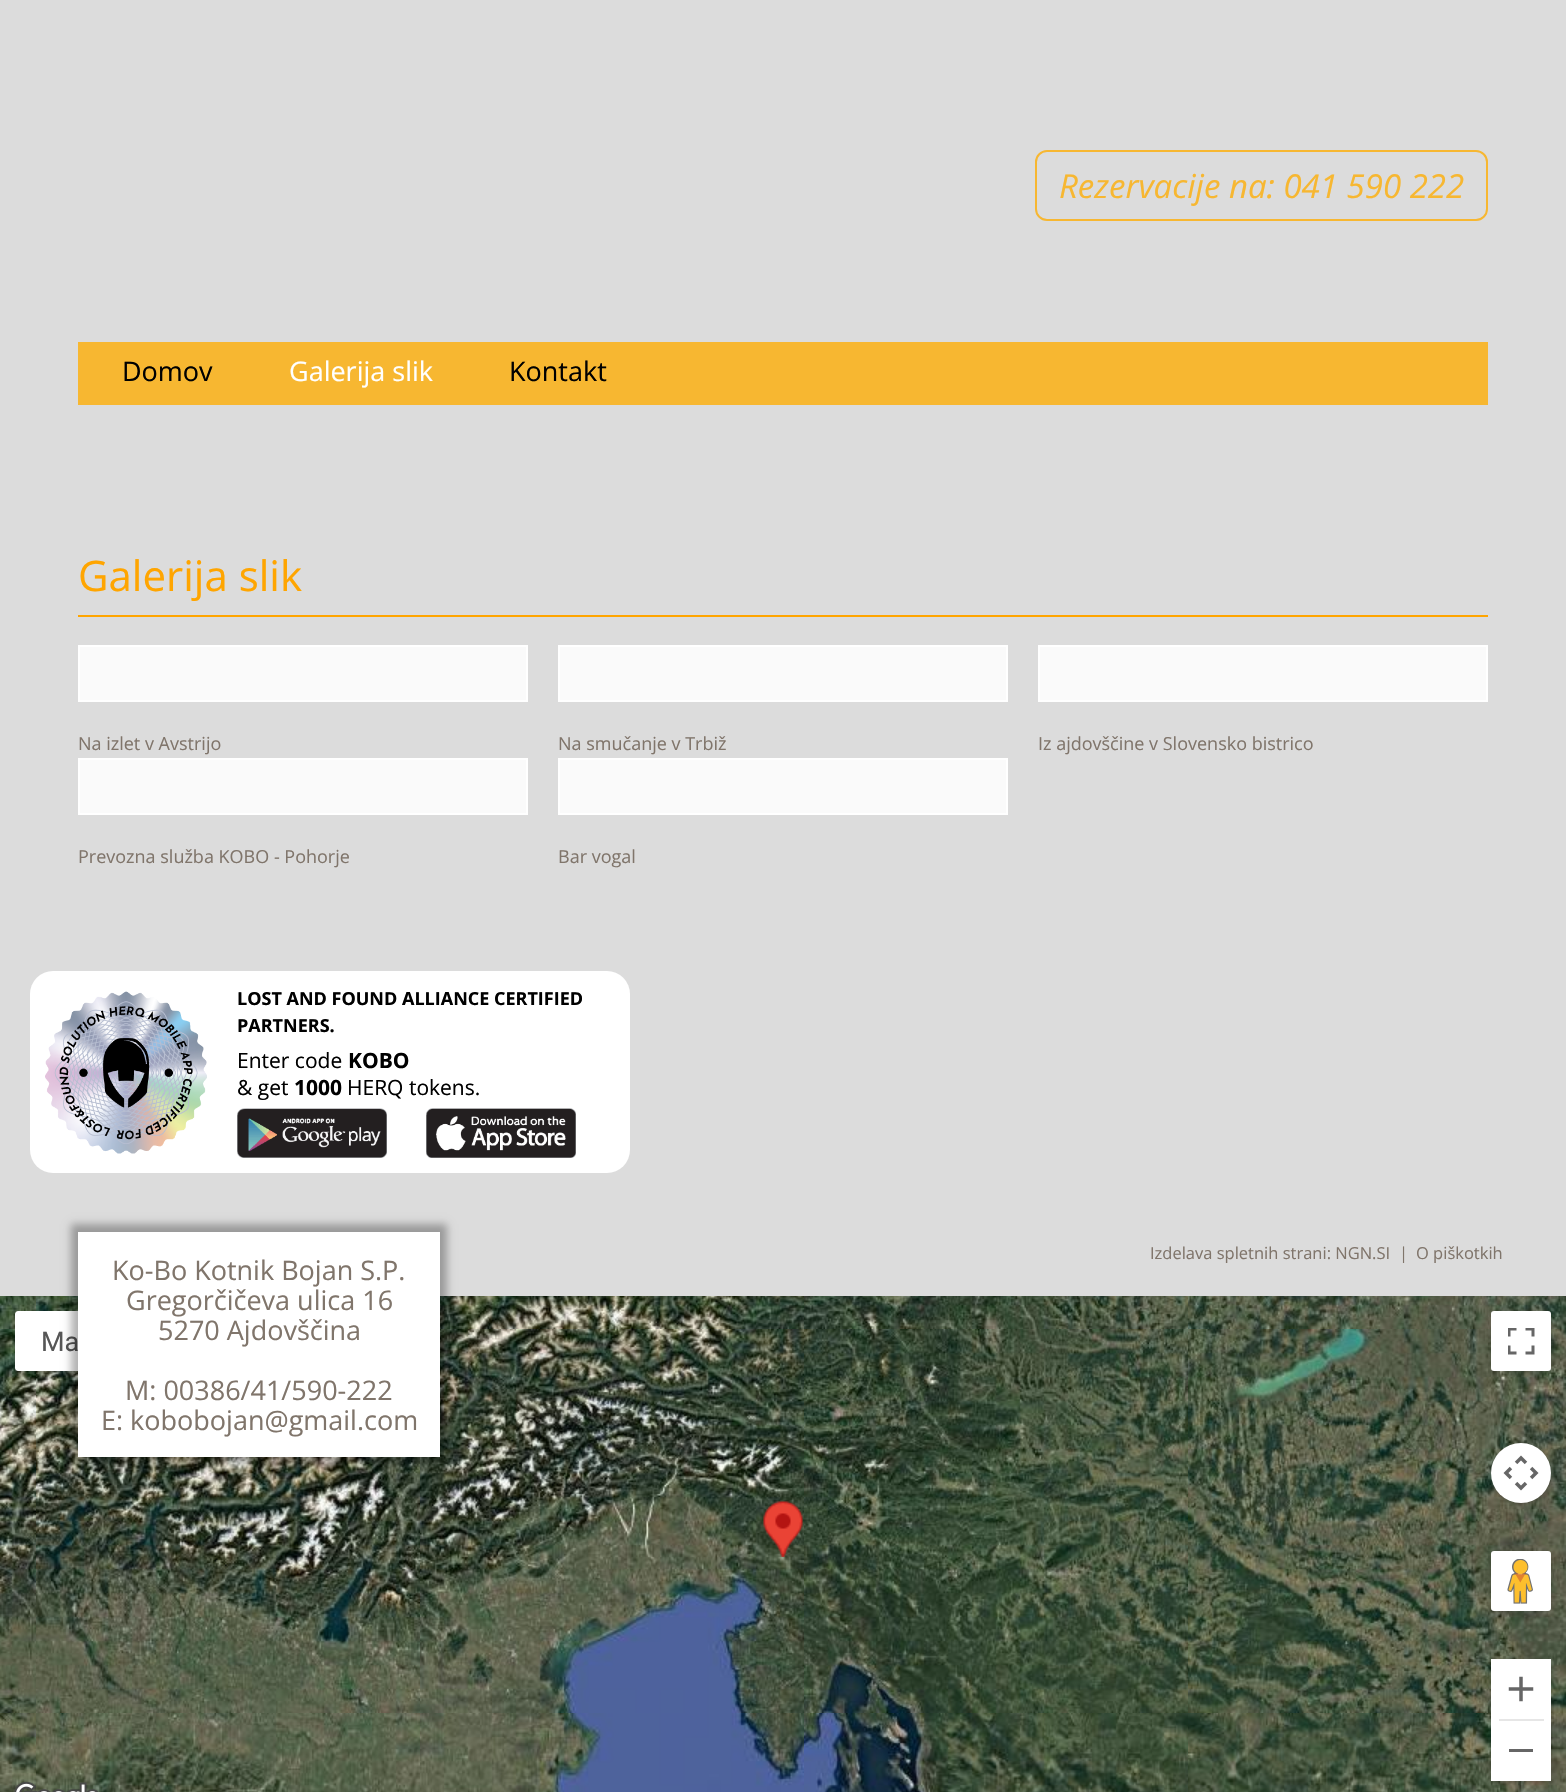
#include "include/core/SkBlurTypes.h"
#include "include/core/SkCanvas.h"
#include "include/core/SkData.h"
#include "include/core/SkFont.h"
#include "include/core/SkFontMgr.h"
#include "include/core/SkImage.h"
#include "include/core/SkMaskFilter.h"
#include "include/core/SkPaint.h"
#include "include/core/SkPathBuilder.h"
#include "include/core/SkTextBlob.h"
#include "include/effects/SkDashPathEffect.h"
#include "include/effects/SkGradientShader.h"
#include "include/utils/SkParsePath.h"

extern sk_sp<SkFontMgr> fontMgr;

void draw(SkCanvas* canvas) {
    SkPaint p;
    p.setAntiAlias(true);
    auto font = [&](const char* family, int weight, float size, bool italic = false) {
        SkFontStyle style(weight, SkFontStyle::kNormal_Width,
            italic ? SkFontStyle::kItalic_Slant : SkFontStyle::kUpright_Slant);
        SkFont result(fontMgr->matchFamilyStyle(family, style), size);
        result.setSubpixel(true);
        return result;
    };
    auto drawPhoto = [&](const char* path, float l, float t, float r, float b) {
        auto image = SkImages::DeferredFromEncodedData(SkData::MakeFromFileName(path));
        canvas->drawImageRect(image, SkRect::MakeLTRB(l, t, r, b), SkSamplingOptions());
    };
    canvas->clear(0xFFDCDCDC);
    p.setStyle(SkPaint::kStroke_Style);
    p.setStrokeWidth(2);
    p.setColor(0xFFF7B731);
    canvas->drawRoundRect(SkRect::MakeLTRB(1036, 151, 1487, 220), 11, 11, p);
    auto font1 = font("Open Sans", 400, 33, true);
    p.setStyle(SkPaint::kFill_Style);
    canvas->drawString("Rezervacije na: 041 590 222", 1059, 198, font1, p);
    canvas->drawRect(SkRect::MakeLTRB(78, 342, 1488, 405), p);
    auto font2 = font("Open Sans", 400, 27);
    p.setColor(0xFF000000);
    canvas->drawString("Domov", 122, 381, font2, p);
    p.setColor(0xFFFFFFFF);
    canvas->drawString("Galerija slik", 289, 381, font2, p);
    p.setColor(0xFF000000);
    canvas->drawString("Kontakt", 509, 381, font2, p);
    p.setColor(0xFFFFA500);
    canvas->drawRect(SkRect::MakeLTRB(78, 615, 1488, 617), p);
    auto font3 = font("Open Sans", 400, 42);
    canvas->drawString("Galerija slik", 78, 591, font3, p);
    p.setColor(0xFFFAFAFA);
    canvas->drawRect(SkRect::MakeLTRB(79, 646, 527, 701), p);
    p.setStyle(SkPaint::kStroke_Style);
    p.setColor(0xFFFFFFFF);
    canvas->drawRect(SkRect::MakeLTRB(79, 646, 527, 701), p);
    auto font4 = font("Open Sans", 400, 18);
    p.setStyle(SkPaint::kFill_Style);
    p.setColor(0xFF80756B);
    canvas->drawString("Na izlet v Avstrijo", 78, 750, font4, p);
    p.setColor(0xFFFAFAFA);
    canvas->drawRect(SkRect::MakeLTRB(559, 646, 1007, 701), p);
    p.setStyle(SkPaint::kStroke_Style);
    p.setColor(0xFFFFFFFF);
    canvas->drawRect(SkRect::MakeLTRB(559, 646, 1007, 701), p);
    p.setStyle(SkPaint::kFill_Style);
    p.setColor(0xFF80756B);
    canvas->drawString("Na smučanje v Trbiž", 558, 750, font4, p);
    p.setColor(0xFFFAFAFA);
    canvas->drawRect(SkRect::MakeLTRB(1039, 646, 1487, 701), p);
    p.setStyle(SkPaint::kStroke_Style);
    p.setColor(0xFFFFFFFF);
    canvas->drawRect(SkRect::MakeLTRB(1039, 646, 1487, 701), p);
    p.setStyle(SkPaint::kFill_Style);
    p.setColor(0xFF80756B);
    canvas->drawString("Iz ajdovščine v Slovensko bistrico", 1038, 750, font4, p);
    p.setColor(0xFFFAFAFA);
    canvas->drawRect(SkRect::MakeLTRB(79, 759, 527, 814), p);
    p.setStyle(SkPaint::kStroke_Style);
    p.setColor(0xFFFFFFFF);
    canvas->drawRect(SkRect::MakeLTRB(79, 759, 527, 814), p);
    p.setStyle(SkPaint::kFill_Style);
    p.setColor(0xFF80756B);
    canvas->drawString("Prevozna služba KOBO - Pohorje", 78, 863, font4, p);
    p.setColor(0xFFFAFAFA);
    canvas->drawRect(SkRect::MakeLTRB(559, 759, 1007, 814), p);
    p.setStyle(SkPaint::kStroke_Style);
    p.setColor(0xFFFFFFFF);
    canvas->drawRect(SkRect::MakeLTRB(559, 759, 1007, 814), p);
    p.setStyle(SkPaint::kFill_Style);
    p.setColor(0xFF80756B);
    canvas->drawString("Bar vogal", 558, 863, font4, p);
    p.setColor(0xFFFFFFFF);
    canvas->drawRoundRect(SkRect::MakeLTRB(30, 971, 630, 1173), 23, 23, p);
    drawPhoto("media/1.png", 45, 991, 207, 1154);
    auto font5 = font("Open Sans", 700, 18);
    p.setColor(0xFF000000);
    canvas->drawString("LOST AND FOUND ALLIANCE CERTIFIED", 237, 1005, font5, p);
    canvas->drawString("PARTNERS.", 237, 1032, font5, p);
    auto font6 = font("Open Sans", 400, 21);
    canvas->drawString("Enter code", 237, 1068, font6, p);
    auto font7 = font("Open Sans", 700, 21);
    canvas->drawString("KOBO", 348, 1068, font7, p);
    canvas->drawString("& get", 237, 1095, font6, p);
    canvas->drawString("1000", 294, 1095, font7, p);
    canvas->drawString("HERQ tokens.", 347, 1095, font6, p);
    drawPhoto("media/2.png", 237, 1108, 387, 1158);
    drawPhoto("media/3.png", 426, 1108, 576, 1158);
    drawPhoto("media/4.png", 0, 1296, 36, 1329);
    drawPhoto("media/5.png", 36, 1296, 78, 1311);
    drawPhoto("media/6.png", 440, 1296, 804, 1329);
    drawPhoto("media/7.png", 804, 1296, 1188, 1329);
    drawPhoto("media/8.png", 1188, 1296, 1566, 1329);
    drawPhoto("media/9.png", 0, 1329, 36, 1713);
    drawPhoto("media/10.png", 36, 1371, 420, 1713);
    drawPhoto("media/11.png", 420, 1329, 804, 1713);
    drawPhoto("media/12.png", 804, 1329, 1188, 1713);
    drawPhoto("media/13.png", 1188, 1329, 1566, 1713);
    drawPhoto("media/14.png", 0, 1713, 36, 1792);
    drawPhoto("media/15.png", 36, 1713, 420, 1792);
    drawPhoto("media/16.png", 420, 1713, 804, 1792);
    drawPhoto("media/17.png", 804, 1713, 1188, 1792);
    drawPhoto("media/18.png", 1188, 1713, 1566, 1792);
    drawPhoto("media/19.png", 763, 1501, 803, 1557);
    p.setColor(0x4D000000);
    p.setMaskFilter(SkMaskFilter::MakeBlur(kNormal_SkBlurStyle, 3));
    canvas->drawRoundRect(SkRect::MakeLTRB(17, 1314, 119, 1371), 1.5f, 1.5f, p);
    p.setMaskFilter(nullptr);
    p.setColor(0xFFFFFFFF);
    canvas->drawPath(SkPathBuilder().moveTo(18, 1311).lineTo(120, 1311).lineTo(120, 1371).lineTo(18, 1371).cubicTo(16.5f, 1371, 15, 1369.5f, 15, 1368).lineTo(15, 1314).cubicTo(15, 1312.5f, 16.5f, 1311, 18, 1311).close().detach(), p);
    auto font8 = font("Roboto", 400, 27);
    p.setColor(0xFF565656);
    canvas->drawString("Ma", 41, 1351, font8, p);
    p.setColor(0x4D000000);
    p.setMaskFilter(SkMaskFilter::MakeBlur(kNormal_SkBlurStyle, 3));
    canvas->drawRoundRect(SkRect::MakeLTRB(1493, 1314, 1550, 1371), 1.5f, 1.5f, p);
    p.setMaskFilter(nullptr);
    p.setColor(0xFFFFFFFF);
    canvas->drawRoundRect(SkRect::MakeLTRB(1491, 1311, 1551, 1371), 3, 3, p);
    drawPhoto("media/20.png", 1508, 1328, 1535, 1355);
    drawPhoto("media/21.png", 14, 1781, 98, 1792);
    p.setColor(0x4D000000);
    p.setMaskFilter(SkMaskFilter::MakeBlur(kNormal_SkBlurStyle, 3));
    canvas->drawRoundRect(SkRect::MakeLTRB(1493, 1446, 1550, 1503), 28.5f, 28.5f, p);
    p.setMaskFilter(nullptr);
    p.setColor(0xFFFFFFFF);
    canvas->drawCircle(1521, 1473, 30, p);
    drawPhoto("media/22.png", 1503, 1455, 1539, 1491);
    p.setColor(0x4D000000);
    p.setMaskFilter(SkMaskFilter::MakeBlur(kNormal_SkBlurStyle, 3));
    canvas->drawRoundRect(SkRect::MakeLTRB(1493, 1554, 1550, 1611), 1.5f, 1.5f, p);
    p.setMaskFilter(nullptr);
    p.setColor(0xFFFFFFFF);
    canvas->drawRoundRect(SkRect::MakeLTRB(1491, 1551, 1551, 1611), 3, 3, p);
    drawPhoto("media/23.png", 1507, 1559, 1533, 1604);
    p.setColor(0x4D000000);
    p.setMaskFilter(SkMaskFilter::MakeBlur(kNormal_SkBlurStyle, 3));
    canvas->drawRoundRect(SkRect::MakeLTRB(1493, 1662, 1550, 1781), 1.5f, 1.5f, p);
    p.setMaskFilter(nullptr);
    p.setColor(0xFFFFFFFF);
    canvas->drawRect(SkRect::MakeLTRB(1491, 1659, 1551, 1781), p);
    drawPhoto("media/24.png", 1508, 1676, 1534, 1702);
    p.setColor(0xFFE6E6E6);
    canvas->drawRect(SkRect::MakeLTRB(1499, 1719, 1544, 1721), p);
    p.setColor(0xFF666666);
    canvas->drawRect(SkRect::MakeLTRB(1509, 1749, 1533, 1752), p);
    auto font9 = font("Open Sans", 400, 16.5f);
    p.setColor(0xFF80756B);
    {
        const struct { const char* s; float x, y; } items[] = {
            {"Izdelava spletnih strani: NGN.SI", 1150, 1259},
            {"|", 1399, 1259},
            {"O piškotkih", 1416, 1259},
        };
        for (auto [s, x, y] : items) {
            canvas->drawString(s, x, y, font9, p);
        }
    }
    p.setColor(0x4D000000);
    p.setMaskFilter(SkMaskFilter::MakeBlur(kNormal_SkBlurStyle, 4));
    canvas->drawRect(SkRect::MakeLTRB(71, 1224, 447, 1464), p);
    p.setMaskFilter(nullptr);
    p.setColor(0xFFFFFFFF);
    canvas->drawRect(SkRect::MakeLTRB(78, 1232, 440, 1457), p);
    p.setColor(0xFF80756B);
    {
        const struct { const char* s; float x, y; } items[] = {
            {"Ko-Bo Kotnik Bojan S.P.", 112, 1280},
            {"Gregorčičeva ulica 16", 126, 1310},
            {"5270 Ajdovščina", 158, 1340},
            {"M: 00386/41/590-222", 125, 1400},
            {"E: kobobojan@gmail.com", 101, 1430},
        };
        for (auto [s, x, y] : items) {
            canvas->drawString(s, x, y, font2, p);
        }
    }
}
